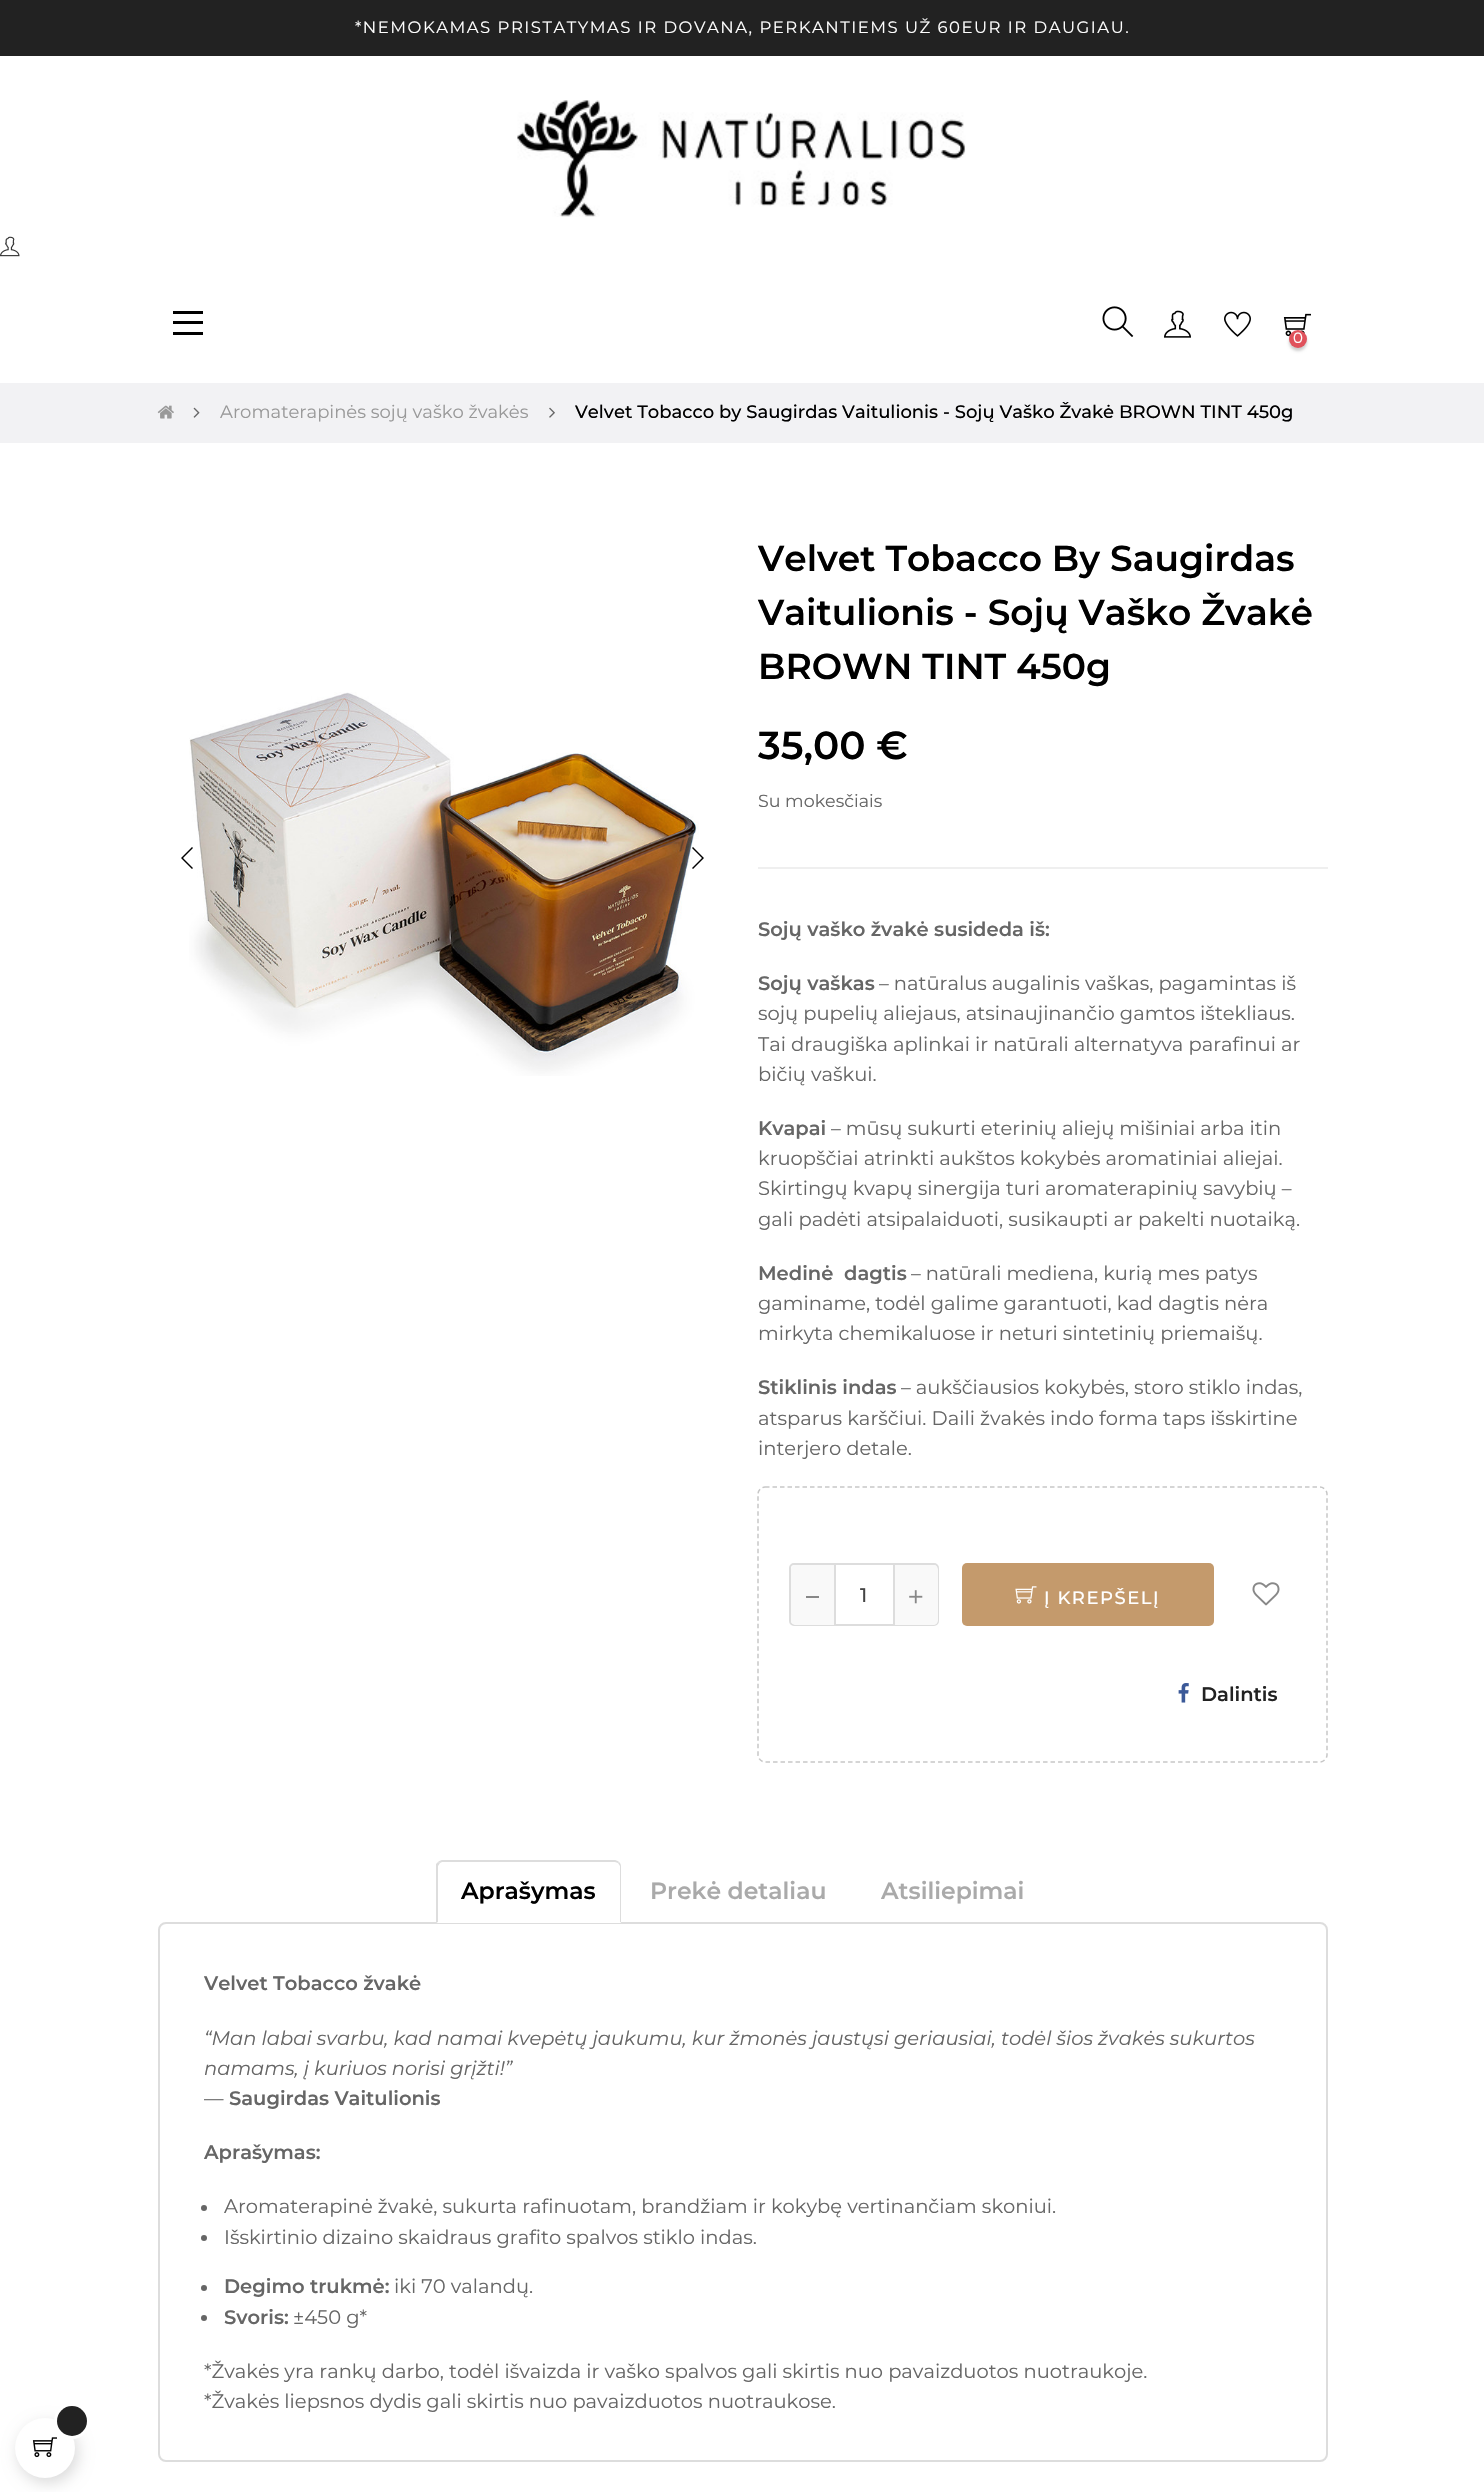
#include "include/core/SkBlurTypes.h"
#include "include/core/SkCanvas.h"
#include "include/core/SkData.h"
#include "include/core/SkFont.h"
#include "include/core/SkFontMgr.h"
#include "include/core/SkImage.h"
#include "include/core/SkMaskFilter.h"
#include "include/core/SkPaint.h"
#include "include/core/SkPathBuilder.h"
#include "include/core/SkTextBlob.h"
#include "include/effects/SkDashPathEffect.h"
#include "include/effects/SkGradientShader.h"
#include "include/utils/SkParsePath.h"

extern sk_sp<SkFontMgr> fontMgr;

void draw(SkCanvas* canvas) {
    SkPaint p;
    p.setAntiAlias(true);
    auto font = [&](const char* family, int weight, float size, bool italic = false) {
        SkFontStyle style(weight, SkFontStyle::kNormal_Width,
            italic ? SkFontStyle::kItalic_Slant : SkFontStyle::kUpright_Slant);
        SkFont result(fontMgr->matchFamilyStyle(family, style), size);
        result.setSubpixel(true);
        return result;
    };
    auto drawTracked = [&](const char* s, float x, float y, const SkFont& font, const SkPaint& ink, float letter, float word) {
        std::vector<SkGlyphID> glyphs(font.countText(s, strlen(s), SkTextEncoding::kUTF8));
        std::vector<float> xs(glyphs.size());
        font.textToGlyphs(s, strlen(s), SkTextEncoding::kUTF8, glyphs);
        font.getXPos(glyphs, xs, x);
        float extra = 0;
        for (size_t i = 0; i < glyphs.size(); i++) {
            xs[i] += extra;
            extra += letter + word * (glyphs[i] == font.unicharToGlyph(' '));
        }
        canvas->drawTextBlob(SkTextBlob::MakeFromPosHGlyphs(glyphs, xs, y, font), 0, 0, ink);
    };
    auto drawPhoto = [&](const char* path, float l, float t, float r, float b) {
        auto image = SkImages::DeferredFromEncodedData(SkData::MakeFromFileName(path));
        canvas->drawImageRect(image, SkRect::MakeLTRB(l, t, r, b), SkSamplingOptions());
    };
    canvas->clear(0xFFFFFFFF);
    p.setColor(0xFF222222);
    canvas->drawRect(SkRect::MakeLTRB(0, 0, 1484, 56), p);
    auto font1 = font("Montserrat", 400, 16.5f);
    p.setColor(0xFFFFFFFF);
    drawTracked("*NEMOKAMAS PRISTATYMAS IR DOVANA, PERKANTIEMS UŽ 60EUR IR DAUGIAU.", 355, 33, font1, p, 1.5f, 0);
    drawPhoto("media/1.png", 517, 100, 966, 217);
    drawPhoto("media/2.png", 0, 236, 20, 257);
    {
        const struct { float l, t, r, b; SkColor color; } items[] = {
            {173, 311, 203, 314, 0xFF000000},
            {173, 332, 203, 335, 0xFF000000},
            {173, 321, 203, 324, 0xFF000000},
        };
        for (auto [l, t, r, b, color] : items) {
            p.setColor(color);
            canvas->drawRect(SkRect::MakeLTRB(l, t, r, b), p);
        }
    }
    drawPhoto("media/3.png", 1102, 306, 1134, 337);
    drawPhoto("media/4.png", 1164, 310, 1191, 338);
    drawPhoto("media/5.png", 1224, 311, 1251, 337);
    drawPhoto("media/6.png", 1283, 313, 1311, 337);
    p.setColor(0x33000000);
    p.setMaskFilter(SkMaskFilter::MakeBlur(kNormal_SkBlurStyle, 1.5f));
    canvas->drawRoundRect(SkRect::MakeLTRB(1289, 333, 1307, 351), 9, 9, p);
    p.setMaskFilter(nullptr);
    p.setColor(0xFFE0525C);
    canvas->drawCircle(1298, 339, 9, p);
    auto font2 = font("Montserrat", 400, 15);
    p.setColor(0xFFFFFFFF);
    canvas->drawString("0", 1293, 343, font2, p);
    p.setColor(0xFFF2F2F4);
    canvas->drawRect(SkRect::MakeLTRB(0, 383, 1484, 443), p);
    drawPhoto("media/7.png", 157, 405, 174, 419);
    drawPhoto("media/8.png", 193, 407, 200, 418);
    auto font3 = font("Montserrat", 400, 18);
    p.setColor(0xFF999999);
    canvas->drawString("Aromaterapinės sojų vaško žvakės", 220, 418, font3, p);
    drawPhoto("media/9.png", 549, 407, 555, 418);
    auto font4 = font("Montserrat", 500, 18);
    p.setColor(0xFF000000);
    canvas->drawString("Velvet Tobacco by Saugirdas Vaitulionis - Sojų Vaško Žvakė BROWN TINT 450g", 575, 418, font4, p);
    drawPhoto("media/10.png", 189, 692, 699, 1076);
    canvas->drawPath(SkPathBuilder().moveTo(183, 858).lineTo(193, 868).lineTo(192, 869).lineTo(181, 858).lineTo(192, 847).lineTo(193, 848).close().detach(), p);
    canvas->drawPath(SkPathBuilder().moveTo(704, 858).lineTo(693, 869).lineTo(692, 868).lineTo(702, 858).lineTo(692, 848).lineTo(693, 847).close().detach(), p);
    auto font5 = font("Montserrat", 600, 36);
    {
        const struct { const char* s; float x, y; } items[] = {
            {"Velvet Tobacco By Saugirdas", 758, 571},
            {"Vaitulionis - Sojų Vaško Žvakė", 758, 625},
            {"BROWN TINT 450g", 758, 679},
        };
        for (auto [s, x, y] : items) {
            canvas->drawString(s, x, y, font5, p);
        }
    }
    auto font6 = font("Montserrat", 600, 39);
    canvas->drawString("35,00 €", 758, 759, font6, p);
    auto font7 = font("Montserrat", 400, 17.5f);
    p.setColor(0xFF666666);
    canvas->drawString("Su mokesčiais", 758, 807, font7, p);
    p.setColor(0xFFEFEFEF);
    canvas->drawRect(SkRect::MakeLTRB(758, 867, 1328, 869), p);
    auto font8 = font("Montserrat", 600, 19.5f);
    p.setColor(0xFF666666);
    canvas->drawString("Sojų vaško žvakė susideda iš:", 758, 936, font8, p);
    canvas->drawString("Sojų vaškas", 758, 990, font8, p);
    auto font9 = font("Montserrat", 400, 19.5f);
    {
        const struct { const char* s; float x, y; } items[] = {
            {"– natūralus augalinis vaškas, pagamintas iš", 879, 990},
            {"sojų pupelių aliejaus, atsinaujinančio gamtos ištekliaus.", 758, 1020},
            {"Tai draugiška aplinkai ir natūrali alternatyva parafinui ar", 758, 1051},
            {"bičių vaškui.", 758, 1081},
        };
        for (auto [s, x, y] : items) {
            canvas->drawString(s, x, y, font9, p);
        }
    }
    canvas->drawString("Kvapai", 758, 1135, font8, p);
    {
        const struct { const char* s; float x, y; } items[] = {
            {"– mūsų sukurti eterinių aliejų mišiniai arba itin", 831, 1135},
            {"kruopščiai atrinkti aukštos kokybės aromatiniai aliejai.", 758, 1165},
            {"Skirtingų kvapų sinergija turi aromaterapinių savybių –", 758, 1195},
            {"gali padėti atsipalaiduoti, susikaupti ar pakelti nuotaiką.", 758, 1226},
        };
        for (auto [s, x, y] : items) {
            canvas->drawString(s, x, y, font9, p);
        }
    }
    canvas->drawString("Medinė  dagtis", 758, 1280, font8, p);
    {
        const struct { const char* s; float x, y; } items[] = {
            {"– natūrali mediena, kurią mes patys", 911, 1280},
            {"gaminame, todėl galime garantuoti, kad dagtis nėra", 758, 1310},
            {"mirkyta chemikaluose ir neturi sintetinių priemaišų.", 758, 1340},
        };
        for (auto [s, x, y] : items) {
            canvas->drawString(s, x, y, font9, p);
        }
    }
    canvas->drawString("Stiklinis indas", 758, 1394, font8, p);
    {
        const struct { const char* s; float x, y; } items[] = {
            {"– aukščiausios kokybės, storo stiklo indas,", 901, 1394},
            {"atsparus karščiui. Daili žvakės indo forma taps išskirtine", 758, 1425},
            {"interjero detale.", 758, 1455},
        };
        for (auto [s, x, y] : items) {
            canvas->drawString(s, x, y, font9, p);
        }
    }
    p.setStyle(SkPaint::kStroke_Style);
    p.setStrokeWidth(1.5f);
    p.setColor(0xFFC7C7C7);
    p.setPathEffect(SkDashPathEffect::Make({{4.5f, 3}}, 0));
    canvas->drawPath(SkPathBuilder().moveTo(765, 1487).lineTo(1320, 1487).cubicTo(1323.5f, 1487, 1327, 1490.5f, 1327, 1494).lineTo(1327, 1755).cubicTo(1327, 1758.5f, 1323.5f, 1762, 1320, 1762).lineTo(765, 1762).cubicTo(761.5f, 1762, 758, 1758.5f, 758, 1755).lineTo(758, 1494).cubicTo(758, 1490.5f, 761.5f, 1487, 765, 1487).close().detach(), p);
    p.setPathEffect(nullptr);
    p.setStrokeWidth(2);
    p.setColor(0xFFDDDDDD);
    canvas->drawRoundRect(SkRect::MakeLTRB(790, 1564, 938, 1625), 4, 4, p);
    p.setStyle(SkPaint::kFill_Style);
    p.setColor(0xFFF9F9F9);
    canvas->drawPath(SkPathBuilder().moveTo(796, 1565).lineTo(836, 1565).lineTo(836, 1625).lineTo(796, 1625).cubicTo(793, 1625, 791, 1623, 791, 1620).lineTo(791, 1570).cubicTo(791, 1567, 793, 1565, 796, 1565).close().detach(), p);
    p.setColor(0xFFDDDDDD);
    canvas->drawRect(SkRect::MakeLTRB(834, 1565, 836, 1625), p);
    p.setColor(0xFF888888);
    canvas->drawRect(SkRect::MakeLTRB(806, 1596, 819, 1598), p);
    p.setColor(0xFFF9F9F9);
    canvas->drawPath(SkPathBuilder().moveTo(893, 1565).lineTo(933, 1565).cubicTo(936, 1565, 938, 1567, 938, 1570).lineTo(938, 1620).cubicTo(938, 1623, 936, 1625, 933, 1625).lineTo(893, 1625).close().detach(), p);
    p.setColor(0xFFDDDDDD);
    canvas->drawRect(SkRect::MakeLTRB(893, 1565, 895, 1625), p);
    drawPhoto("media/11.png", 909, 1590, 923, 1604);
    auto font10 = font("Montserrat", 500, 19.5f);
    p.setColor(0xFF444444);
    canvas->drawString("1", 860, 1602, font10, p);
    p.setColor(0xFFC49A6C);
    canvas->drawRoundRect(SkRect::MakeLTRB(962, 1563, 1214, 1626), 5, 5, p);
    drawPhoto("media/12.png", 1015, 1586, 1037, 1604);
    p.setColor(0xFFFFFFFF);
    drawTracked("Į KREPŠELĮ", 1044, 1604, font4, p, 1.5f, 0);
    drawPhoto("media/13.png", 1252, 1582, 1280, 1606);
    drawPhoto("media/14.png", 1178, 1683, 1189, 1703);
    p.setColor(0xFF222222);
    canvas->drawString("Dalintis", 1201, 1701, font8, p);
    p.setStyle(SkPaint::kStroke_Style);
    p.setColor(0xFFDDDDDD);
    canvas->drawRoundRect(SkRect::MakeLTRB(159, 1923, 1327, 2461), 7, 7, p);
    p.setStyle(SkPaint::kFill_Style);
    p.setColor(0xFFFFFFFF);
    canvas->drawPath(SkPathBuilder().moveTo(443, 1860).lineTo(615, 1860).cubicTo(618.5f, 1860, 621, 1862.5f, 621, 1866).lineTo(621, 1923).lineTo(437, 1923).lineTo(437, 1866).cubicTo(437, 1862.5f, 439.5f, 1860, 443, 1860).close().detach(), p);
    p.setColor(0xFFDDDDDD);
    canvas->drawPath(SkPathBuilder().moveTo(442, 1860).cubicTo(441, 1860, 439, 1861, 438, 1862).lineTo(440, 1863).lineTo(442, 1862).lineTo(615, 1862).lineTo(618, 1863).lineTo(619, 1862).cubicTo(618, 1861, 616, 1860, 615, 1860).close().detach(), p);
    canvas->drawPath(SkPathBuilder().moveTo(621, 1923).lineTo(621, 1866).cubicTo(621, 1864, 620, 1863, 619, 1862).lineTo(618, 1863).lineTo(620, 1866).lineTo(620, 1922).close().detach(), p);
    p.setColor(0xFFFFFFFF);
    canvas->drawPath(SkPathBuilder().moveTo(621, 1923).lineTo(620, 1922).lineTo(438, 1922).lineTo(436, 1923).close().detach(), p);
    p.setColor(0xFFDDDDDD);
    canvas->drawPath(SkPathBuilder().moveTo(436, 1923).lineTo(436, 1864).lineTo(438, 1862).lineTo(440, 1863).lineTo(438, 1866).lineTo(438, 1922).close().detach(), p);
    auto font11 = font("Montserrat", 600, 23.5f);
    p.setColor(0xFF000000);
    canvas->drawString("Aprašymas", 461, 1899, font11, p);
    p.setColor(0xFFAAAAAA);
    canvas->drawString("Prekė detaliau", 650, 1899, font11, p);
    canvas->drawString("Atsiliepimai", 881, 1899, font11, p);
    p.setColor(0xFF666666);
    canvas->drawString("Velvet Tobacco žvakė", 204, 1990, font8, p);
    auto font12 = font("Montserrat", 400, 19.5f, true);
    canvas->drawString("“Man labai svarbu, kad namai kvepėtų jaukumu, kur žmonės jaustųsi geriausiai, todėl šios žvakės sukurtos", 204, 2045, font12, p);
    canvas->drawString("namams, į kuriuos norisi grįžti!”", 204, 2075, font12, p);
    canvas->drawString("—", 204, 2105, font9, p);
    canvas->drawString("Saugirdas Vaitulionis", 229, 2105, font8, p);
    canvas->drawString("Aprašymas:", 204, 2159, font8, p);
    canvas->drawCircle(204, 2208, 3, p);
    canvas->drawString("Aromaterapinė žvakė, sukurta rafinuotam, brandžiam ir kokybę vertinančiam skoniui.", 224, 2213, font9, p);
    canvas->drawCircle(204, 2238, 3, p);
    canvas->drawString("Išskirtinio dizaino skaidraus grafito spalvos stiklo indas.", 224, 2244, font9, p);
    canvas->drawCircle(204, 2288, 3, p);
    canvas->drawString("Degimo trukmė:", 224, 2293, font8, p);
    canvas->drawString("iki 70 valandų.", 394, 2293, font9, p);
    canvas->drawCircle(204, 2318, 3, p);
    canvas->drawString("Svoris:", 224, 2324, font8, p);
    {
        const struct { const char* s; float x, y; } items[] = {
            {"±450 g*", 293, 2324},
            {"*Žvakės yra rankų darbo, todėl išvaizda ir vaško spalvos gali skirtis nuo pavaizduotos nuotraukoje.", 204, 2378},
            {"*Žvakės liepsnos dydis gali skirtis nuo pavaizduotos nuotraukose.", 204, 2408},
        };
        for (auto [s, x, y] : items) {
            canvas->drawString(s, x, y, font9, p);
        }
    }
    p.setColor(0x26000000);
    p.setMaskFilter(SkMaskFilter::MakeBlur(kNormal_SkBlurStyle, 7.5f));
    canvas->drawRoundRect(SkRect::MakeLTRB(18, 2423, 78, 2483), 30, 30, p);
    p.setMaskFilter(nullptr);
    p.setColor(0xFFFFFFFF);
    canvas->drawCircle(45, 2448, 30, p);
    drawPhoto("media/15.png", 32, 2437, 57, 2458);
    p.setStyle(SkPaint::kStroke_Style);
    p.setStrokeWidth(3);
    canvas->drawCircle(72, 2421, 16.5f, p);
    p.setStyle(SkPaint::kFill_Style);
    p.setColor(0xFF222222);
    canvas->drawCircle(72, 2421, 15, p);
}
